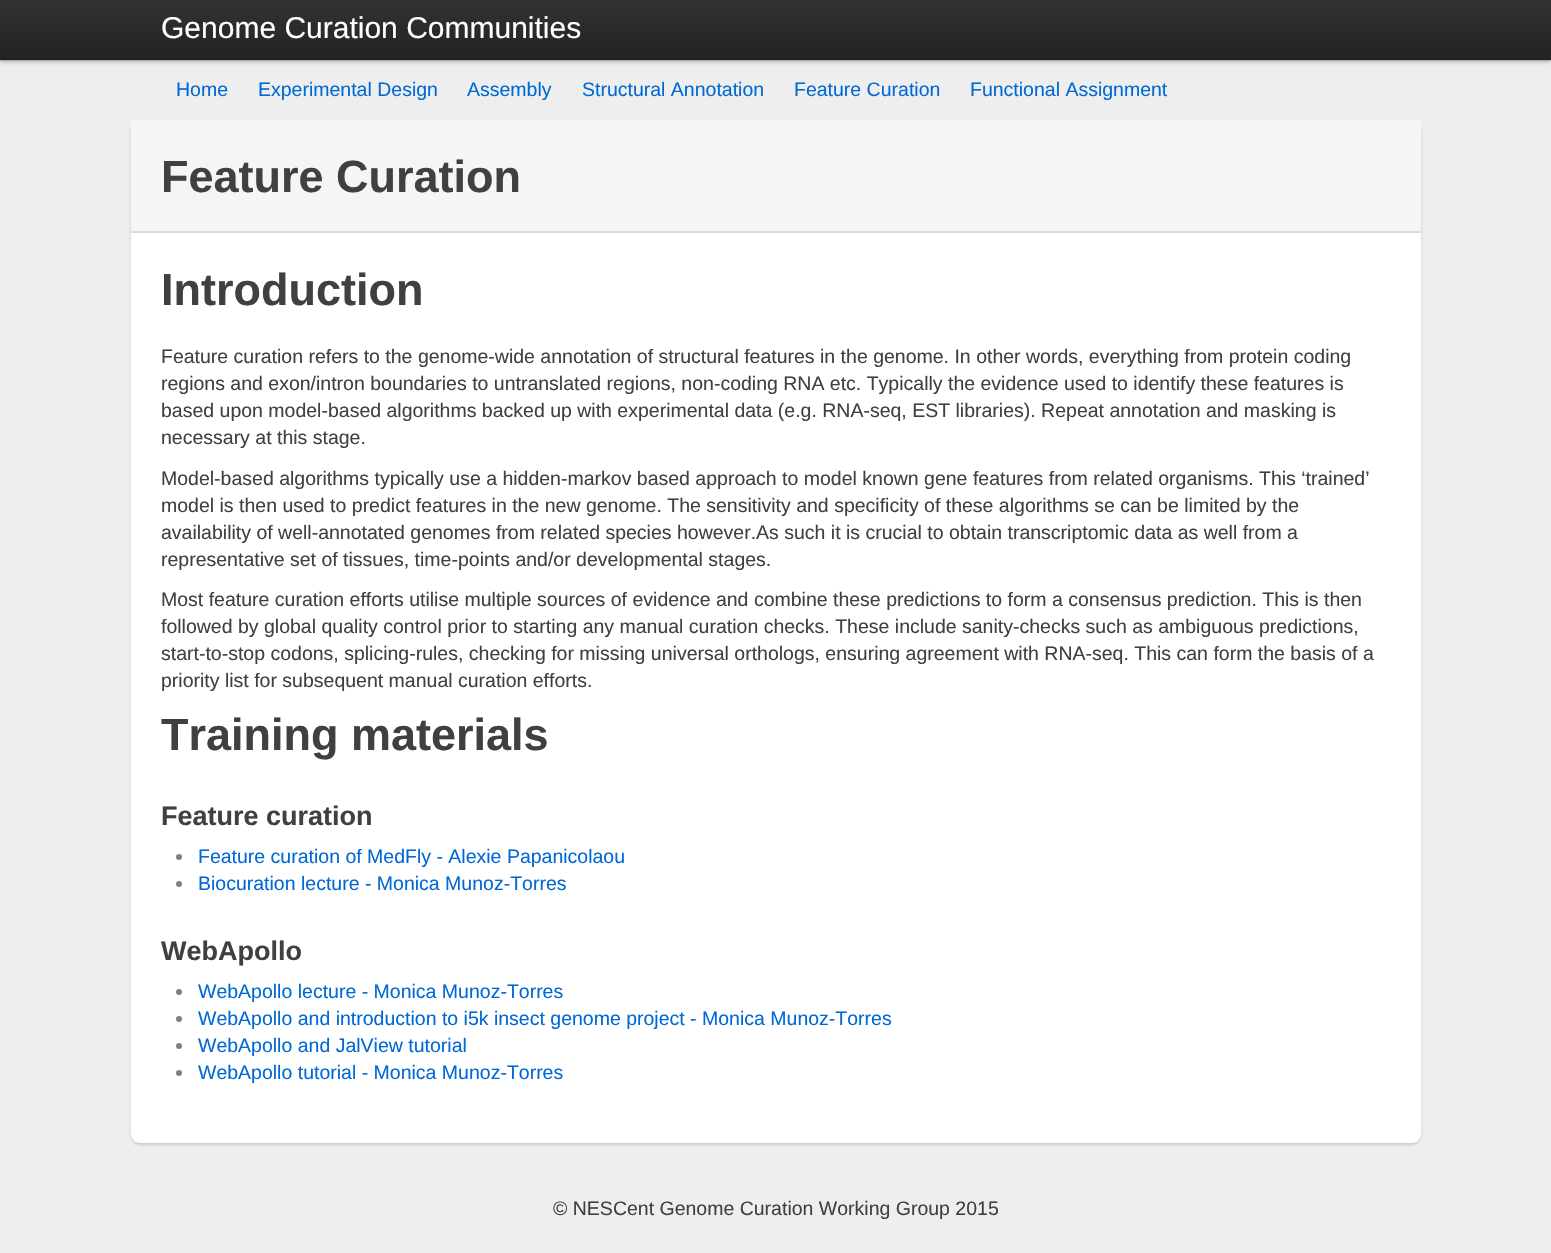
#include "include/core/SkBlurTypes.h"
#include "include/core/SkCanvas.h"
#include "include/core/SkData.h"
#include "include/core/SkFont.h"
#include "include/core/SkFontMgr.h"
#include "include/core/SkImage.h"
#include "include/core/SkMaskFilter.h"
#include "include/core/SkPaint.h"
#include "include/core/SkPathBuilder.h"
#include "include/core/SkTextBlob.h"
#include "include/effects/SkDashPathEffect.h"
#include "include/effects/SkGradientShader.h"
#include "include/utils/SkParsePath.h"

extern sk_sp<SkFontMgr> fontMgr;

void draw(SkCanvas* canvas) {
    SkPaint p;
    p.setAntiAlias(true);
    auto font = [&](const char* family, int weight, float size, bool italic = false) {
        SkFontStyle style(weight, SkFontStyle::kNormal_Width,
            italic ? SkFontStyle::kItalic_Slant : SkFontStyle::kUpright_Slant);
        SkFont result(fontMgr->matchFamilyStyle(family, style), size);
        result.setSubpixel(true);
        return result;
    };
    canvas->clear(0xFFEEEEEE);
    p.setColor(0x40000000);
    p.setMaskFilter(SkMaskFilter::MakeBlur(kNormal_SkBlurStyle, 2));
    canvas->drawRect(SkRect::MakeLTRB(0, 2, 1551, 62), p);
    p.setMaskFilter(nullptr);
    {
        const SkColor colors[] = {0xFF333333, 0xFF222222};
        const float stops[] = {0, 1};
        const SkPoint ends[] = {{776, 0}, {776, 60}};
        p.setShader(SkGradientShader::MakeLinear(ends, colors, stops, 2, SkTileMode::kClamp));
        p.setAlpha(255);
    }
    canvas->drawRect(SkRect::MakeLTRB(0, 0, 1551, 60), p);
    p.setShader(nullptr);
    p.setColor(0x1A000000);
    canvas->drawRect(SkRect::MakeLTRB(0, 59, 1551, 61), p);
    auto font1 = font("Liberation Sans", 400, 30);
    p.setColor(0xFFFFFFFF);
    canvas->drawString("Genome Curation Communities", 161, 38, font1, p);
    auto font2 = font("Liberation Sans", 400, 19.5f);
    p.setColor(0xFF0069D6);
    {
        const struct { const char* s; float x, y; } items[] = {
            {"Home", 176, 96},
            {"Experimental Design", 258, 96},
            {"Assembly", 467, 96},
            {"Structural Annotation", 582, 96},
            {"Feature Curation", 794, 96},
            {"Functional Assignment", 970, 96},
        };
        for (auto [s, x, y] : items) {
            canvas->drawString(s, x, y, font2, p);
        }
    }
    p.setColor(0x26000000);
    p.setMaskFilter(SkMaskFilter::MakeBlur(kNormal_SkBlurStyle, 1.5f));
    canvas->drawRoundRect(SkRect::MakeLTRB(131, 122, 1421, 1145), 9, 9, p);
    p.setMaskFilter(nullptr);
    p.setColor(0xFFFFFFFF);
    canvas->drawPath(SkPathBuilder().moveTo(131, 120).lineTo(1421, 120).lineTo(1421, 1134).cubicTo(1421, 1139, 1417, 1143, 1412, 1143).lineTo(140, 1143).cubicTo(135, 1143, 131, 1139, 131, 1134).close().detach(), p);
    p.setColor(0xFFF5F5F5);
    canvas->drawRect(SkRect::MakeLTRB(131, 120, 1421, 231), p);
    p.setColor(0xFFDDDDDD);
    canvas->drawRect(SkRect::MakeLTRB(131, 231, 1421, 233), p);
    auto font3 = font("Liberation Sans", 700, 45);
    p.setColor(0xFF404040);
    canvas->drawString("Feature Curation", 161, 192, font3, p);
    canvas->drawString("Introduction", 161, 305, font3, p);
    {
        const struct { const char* s; float x, y; } items[] = {
            {"Feature curation refers to the genome-wide annotation of structural features in the genome. In other words, everything from protein coding", 161, 363},
            {"regions and exon/intron boundaries to untranslated regions, non-coding RNA etc. Typically the evidence used to identify these features is", 161, 390},
            {"based upon model-based algorithms backed up with experimental data (e.g. RNA-seq, EST libraries). Repeat annotation and masking is", 161, 417},
            {"necessary at this stage.", 161, 444},
            {"Model-based algorithms typically use a hidden-markov based approach to model known gene features from related organisms. This ‘trained’", 161, 485},
            {"model is then used to predict features in the new genome. The sensitivity and specificity of these algorithms se can be limited by the", 161, 512},
            {"availability of well-annotated genomes from related species however.As such it is crucial to obtain transcriptomic data as well from a", 161, 539},
            {"representative set of tissues, time-points and/or developmental stages.", 161, 566},
            {"Most feature curation efforts utilise multiple sources of evidence and combine these predictions to form a consensus prediction. This is then", 161, 606},
            {"followed by global quality control prior to starting any manual curation checks. These include sanity-checks such as ambiguous predictions,", 161, 633},
            {"start-to-stop codons, splicing-rules, checking for missing universal orthologs, ensuring agreement with RNA-seq. This can form the basis of a", 161, 660},
            {"priority list for subsequent manual curation efforts.", 161, 687},
        };
        for (auto [s, x, y] : items) {
            canvas->drawString(s, x, y, font2, p);
        }
    }
    canvas->drawString("Training materials", 161, 750, font3, p);
    auto font4 = font("Liberation Sans", 700, 27);
    canvas->drawString("Feature curation", 161, 825, font4, p);
    p.setColor(0xFF808080);
    canvas->drawCircle(179, 857, 3, p);
    p.setColor(0xFF0069D6);
    canvas->drawString("Feature curation of MedFly - Alexie Papanicolaou", 198, 863, font2, p);
    p.setColor(0xFF808080);
    canvas->drawCircle(179, 884, 3, p);
    p.setColor(0xFF0069D6);
    canvas->drawString("Biocuration lecture - Monica Munoz-Torres", 198, 890, font2, p);
    p.setColor(0xFF404040);
    canvas->drawString("WebApollo", 161, 960, font4, p);
    p.setColor(0xFF808080);
    canvas->drawCircle(179, 992, 3, p);
    p.setColor(0xFF0069D6);
    canvas->drawString("WebApollo lecture - Monica Munoz-Torres", 198, 998, font2, p);
    p.setColor(0xFF808080);
    canvas->drawCircle(179, 1019, 3, p);
    p.setColor(0xFF0069D6);
    canvas->drawString("WebApollo and introduction to i5k insect genome project - Monica Munoz-Torres", 198, 1025, font2, p);
    p.setColor(0xFF808080);
    canvas->drawCircle(179, 1046, 3, p);
    p.setColor(0xFF0069D6);
    canvas->drawString("WebApollo and JalView tutorial", 198, 1052, font2, p);
    p.setColor(0xFF808080);
    canvas->drawCircle(179, 1073, 3, p);
    p.setColor(0xFF0069D6);
    canvas->drawString("WebApollo tutorial - Monica Munoz-Torres", 198, 1079, font2, p);
    p.setColor(0xFF404040);
    canvas->drawString("© NESCent Genome Curation Working Group 2015", 553, 1215, font2, p);
}
